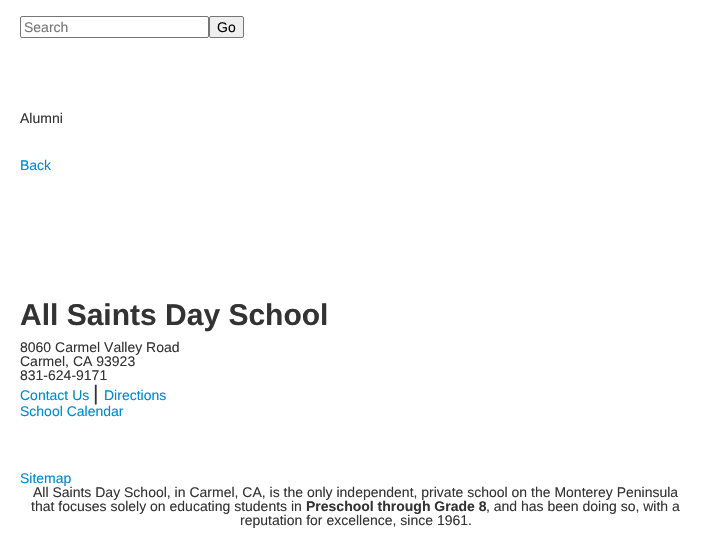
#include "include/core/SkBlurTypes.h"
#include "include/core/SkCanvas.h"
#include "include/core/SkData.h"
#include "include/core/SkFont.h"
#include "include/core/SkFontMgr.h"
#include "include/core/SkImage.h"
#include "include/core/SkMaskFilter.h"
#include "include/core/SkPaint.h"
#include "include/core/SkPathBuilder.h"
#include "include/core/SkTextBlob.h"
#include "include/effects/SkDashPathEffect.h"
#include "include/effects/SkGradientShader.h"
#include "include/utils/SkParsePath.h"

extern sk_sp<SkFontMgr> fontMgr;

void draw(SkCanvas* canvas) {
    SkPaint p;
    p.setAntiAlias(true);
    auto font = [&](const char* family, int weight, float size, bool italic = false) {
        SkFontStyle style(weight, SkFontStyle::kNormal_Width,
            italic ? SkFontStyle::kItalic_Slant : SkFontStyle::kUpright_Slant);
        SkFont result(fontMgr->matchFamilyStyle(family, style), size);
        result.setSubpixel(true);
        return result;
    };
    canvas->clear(0xFFFFFFFF);
    p.setStyle(SkPaint::kStroke_Style);
    p.setStrokeWidth(1);
    p.setColor(0xFF767676);
    canvas->drawRoundRect(SkRect::MakeLTRB(20.5f, 16.5f, 208.5f, 37.5f), 1.5f, 1.5f, p);
    auto font1 = font("Liberation Sans", 400, 14);
    p.setStyle(SkPaint::kFill_Style);
    p.setColor(0xFF757575);
    canvas->drawString("Search", 24, 32, font1, p);
    p.setColor(0xFFEFEFEF);
    canvas->drawRoundRect(SkRect::MakeLTRB(209.5f, 16.5f, 243.5f, 37.5f), 1.5f, 1.5f, p);
    p.setStyle(SkPaint::kStroke_Style);
    p.setColor(0xFF767676);
    canvas->drawRoundRect(SkRect::MakeLTRB(209.5f, 16.5f, 243.5f, 37.5f), 1.5f, 1.5f, p);
    p.setStyle(SkPaint::kFill_Style);
    p.setColor(0xFF000000);
    canvas->drawString("Go", 217, 32, font1, p);
    p.setColor(0xFF333333);
    canvas->drawString("Alumni", 20, 123, font1, p);
    p.setColor(0xFF0088CC);
    canvas->drawString("Back", 20, 170, font1, p);
    auto font2 = font("Liberation Sans", 700, 30);
    p.setColor(0xFF333333);
    canvas->drawString("All Saints Day School", 20, 325, font2, p);
    {
        const struct { const char* s; float x, y; } items[] = {
            {"8060 Carmel Valley Road", 20, 352},
            {"Carmel, CA 93923", 20, 366},
            {"831-624-9171", 20, 380},
        };
        for (auto [s, x, y] : items) {
            canvas->drawString(s, x, y, font1, p);
        }
    }
    p.setColor(0xFF0088CC);
    canvas->drawString("Contact Us", 20, 400, font1, p);
    auto font3 = font("Liberation Sans", 400, 21);
    p.setColor(0xFF333333);
    canvas->drawString("|", 93, 400, font3, p);
    p.setColor(0xFF0088CC);
    {
        const struct { const char* s; float x, y; } items[] = {
            {"Directions", 104, 400},
            {"School Calendar", 20, 416},
            {"Sitemap", 20, 483},
        };
        for (auto [s, x, y] : items) {
            canvas->drawString(s, x, y, font1, p);
        }
    }
    p.setColor(0xFF333333);
    canvas->drawString("All Saints Day School, in Carmel, CA, is the only independent, private school on the Monterey Peninsula", 33, 497, font1, p);
    canvas->drawString("that focuses solely on educating students in", 31, 511, font1, p);
    auto font4 = font("Liberation Sans", 700, 14);
    canvas->drawString("Preschool through Grade 8", 306, 511, font4, p);
    canvas->drawString(", and has been doing so, with a", 486, 511, font1, p);
    canvas->drawString("reputation for excellence, since 1961.", 240, 525, font1, p);
}
